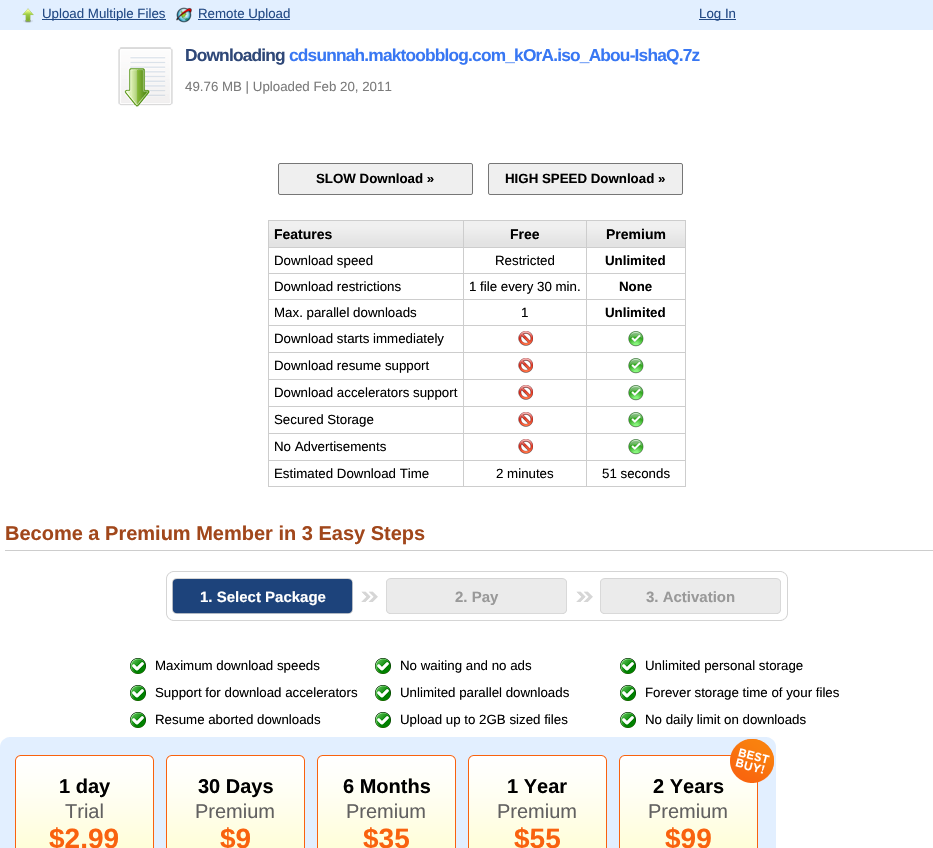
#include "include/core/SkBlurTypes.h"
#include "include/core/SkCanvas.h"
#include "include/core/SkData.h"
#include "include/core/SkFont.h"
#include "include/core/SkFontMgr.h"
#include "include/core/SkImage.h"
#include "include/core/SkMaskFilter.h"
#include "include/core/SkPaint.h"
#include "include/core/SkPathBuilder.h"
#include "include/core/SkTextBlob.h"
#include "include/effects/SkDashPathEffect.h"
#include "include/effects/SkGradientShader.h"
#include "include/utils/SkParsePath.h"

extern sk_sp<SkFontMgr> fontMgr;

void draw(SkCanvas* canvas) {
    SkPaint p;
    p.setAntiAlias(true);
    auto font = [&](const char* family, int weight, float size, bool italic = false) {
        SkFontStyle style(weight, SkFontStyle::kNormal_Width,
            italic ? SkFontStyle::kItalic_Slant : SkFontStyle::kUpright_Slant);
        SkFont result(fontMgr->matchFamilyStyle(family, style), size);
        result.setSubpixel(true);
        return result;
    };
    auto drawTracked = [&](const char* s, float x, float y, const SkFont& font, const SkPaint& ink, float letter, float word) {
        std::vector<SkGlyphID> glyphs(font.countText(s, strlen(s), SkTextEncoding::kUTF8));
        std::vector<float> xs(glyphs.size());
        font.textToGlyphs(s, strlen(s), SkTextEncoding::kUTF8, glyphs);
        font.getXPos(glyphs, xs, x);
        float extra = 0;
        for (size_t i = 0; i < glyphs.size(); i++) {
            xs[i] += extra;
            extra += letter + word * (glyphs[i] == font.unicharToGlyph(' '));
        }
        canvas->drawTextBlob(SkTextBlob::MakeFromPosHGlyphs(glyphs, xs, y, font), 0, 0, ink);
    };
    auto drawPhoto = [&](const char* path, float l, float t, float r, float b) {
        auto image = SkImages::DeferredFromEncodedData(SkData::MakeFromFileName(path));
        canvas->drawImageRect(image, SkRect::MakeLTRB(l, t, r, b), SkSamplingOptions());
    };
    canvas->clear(0xFFFFFFFF);
    p.setColor(0xFFE2EFFF);
    canvas->drawRect(SkRect::MakeLTRB(0, 0, 933, 30), p);
    drawPhoto("media/1.png", 22, 8, 34, 23);
    p.setColor(0xFF234A85);
    canvas->drawRect(SkRect::MakeLTRB(42, 19, 166, 20), p);
    auto font1 = font("Liberation Sans", 400, 13.3f);
    canvas->drawString("Upload Multiple Files", 42, 18, font1, p);
    drawPhoto("media/2.png", 176, 7, 192, 23);
    canvas->drawRect(SkRect::MakeLTRB(198, 19, 290, 20), p);
    canvas->drawString("Remote Upload", 198, 18, font1, p);
    canvas->drawRect(SkRect::MakeLTRB(699, 19, 736, 20), p);
    canvas->drawString("Log In", 699, 18, font1, p);
    drawPhoto("media/3.png", 118, 47, 173, 107);
    auto font2 = font("Liberation Sans", 700, 17.3f);
    p.setColor(0xFF2F4878);
    drawTracked("Downloading", 185, 61, font2, p, -0.8f, 0);
    p.setColor(0xFF3877F3);
    drawTracked("cdsunnah.maktoobblog.com_kOrA.iso_Abou-IshaQ.7z", 289, 61, font2, p, -0.8f, 0);
    p.setColor(0xFF7B7B7B);
    canvas->drawString("49.76 MB | Uploaded Feb 20, 2011", 185, 91, font1, p);
    p.setColor(0xFFEFEFEF);
    canvas->drawRoundRect(SkRect::MakeLTRB(278.5f, 163.5f, 472.5f, 194.5f), 1.5f, 1.5f, p);
    p.setStyle(SkPaint::kStroke_Style);
    p.setStrokeWidth(1);
    p.setColor(0xFF767676);
    canvas->drawRoundRect(SkRect::MakeLTRB(278.5f, 163.5f, 472.5f, 194.5f), 1.5f, 1.5f, p);
    auto font3 = font("Liberation Sans", 700, 13.3f);
    p.setStyle(SkPaint::kFill_Style);
    p.setColor(0xFF000000);
    canvas->drawString("SLOW Download »", 316, 183, font3, p);
    p.setColor(0xFFEFEFEF);
    canvas->drawRoundRect(SkRect::MakeLTRB(488.5f, 163.5f, 682.5f, 194.5f), 1.5f, 1.5f, p);
    p.setStyle(SkPaint::kStroke_Style);
    p.setColor(0xFF767676);
    canvas->drawRoundRect(SkRect::MakeLTRB(488.5f, 163.5f, 682.5f, 194.5f), 1.5f, 1.5f, p);
    p.setStyle(SkPaint::kFill_Style);
    p.setColor(0xFF000000);
    canvas->drawString("HIGH SPEED Download »", 505, 183, font3, p);
    p.setColor(0xFFCDCDCD);
    canvas->drawRect(SkRect::MakeLTRB(268, 220, 686, 487), p);
    drawPhoto("media/4.png", 269, 221, 463, 247);
    auto font4 = font("Liberation Sans", 700, 14);
    p.setColor(0xFF000000);
    canvas->drawString("Features", 274, 239, font4, p);
    drawPhoto("media/5.png", 464, 221, 586, 247);
    canvas->drawString("Free", 510, 239, font4, p);
    drawPhoto("media/6.png", 587, 221, 685, 247);
    canvas->drawString("Premium", 606, 239, font4, p);
    p.setColor(0xFFFFFFFF);
    canvas->drawRect(SkRect::MakeLTRB(269, 248, 463, 273), p);
    p.setColor(0xFF000000);
    canvas->drawString("Download speed", 274, 265, font1, p);
    p.setColor(0xFFFFFFFF);
    canvas->drawRect(SkRect::MakeLTRB(464, 248, 586, 273), p);
    p.setColor(0xFF000000);
    canvas->drawString("Restricted", 495, 265, font1, p);
    p.setColor(0xFFFFFFFF);
    canvas->drawRect(SkRect::MakeLTRB(587, 248, 685, 273), p);
    p.setColor(0xFF000000);
    canvas->drawString("Unlimited", 605, 265, font3, p);
    p.setColor(0xFFFFFFFF);
    canvas->drawRect(SkRect::MakeLTRB(269, 274, 463, 299), p);
    p.setColor(0xFF000000);
    canvas->drawString("Download restrictions", 274, 291, font1, p);
    p.setColor(0xFFFFFFFF);
    canvas->drawRect(SkRect::MakeLTRB(464, 274, 586, 299), p);
    p.setColor(0xFF000000);
    canvas->drawString("1 file every 30 min.", 469, 291, font1, p);
    p.setColor(0xFFFFFFFF);
    canvas->drawRect(SkRect::MakeLTRB(587, 274, 685, 299), p);
    p.setColor(0xFF000000);
    canvas->drawString("None", 619, 291, font3, p);
    p.setColor(0xFFFFFFFF);
    canvas->drawRect(SkRect::MakeLTRB(269, 300, 463, 325), p);
    p.setColor(0xFF000000);
    canvas->drawString("Max. parallel downloads", 274, 317, font1, p);
    p.setColor(0xFFFFFFFF);
    canvas->drawRect(SkRect::MakeLTRB(464, 300, 586, 325), p);
    p.setColor(0xFF000000);
    canvas->drawString("1", 521, 317, font1, p);
    p.setColor(0xFFFFFFFF);
    canvas->drawRect(SkRect::MakeLTRB(587, 300, 685, 325), p);
    p.setColor(0xFF000000);
    canvas->drawString("Unlimited", 605, 317, font3, p);
    p.setColor(0xFFFFFFFF);
    canvas->drawRect(SkRect::MakeLTRB(269, 326, 463, 352), p);
    p.setColor(0xFF000000);
    canvas->drawString("Download starts immediately", 274, 343, font1, p);
    p.setColor(0xFFFFFFFF);
    canvas->drawRect(SkRect::MakeLTRB(464, 326, 586, 352), p);
    drawPhoto("media/7.png", 518, 331, 533, 346);
    canvas->drawRect(SkRect::MakeLTRB(587, 326, 685, 352), p);
    drawPhoto("media/8.png", 628, 331, 644, 347);
    canvas->drawRect(SkRect::MakeLTRB(269, 353, 463, 379), p);
    p.setColor(0xFF000000);
    canvas->drawString("Download resume support", 274, 370, font1, p);
    p.setColor(0xFFFFFFFF);
    canvas->drawRect(SkRect::MakeLTRB(464, 353, 586, 379), p);
    drawPhoto("media/7.png", 518, 358, 533, 373);
    canvas->drawRect(SkRect::MakeLTRB(587, 353, 685, 379), p);
    drawPhoto("media/8.png", 628, 358, 644, 374);
    canvas->drawRect(SkRect::MakeLTRB(269, 380, 463, 406), p);
    p.setColor(0xFF000000);
    canvas->drawString("Download accelerators support", 274, 397, font1, p);
    p.setColor(0xFFFFFFFF);
    canvas->drawRect(SkRect::MakeLTRB(464, 380, 586, 406), p);
    drawPhoto("media/7.png", 518, 385, 533, 400);
    canvas->drawRect(SkRect::MakeLTRB(587, 380, 685, 406), p);
    drawPhoto("media/8.png", 628, 385, 644, 401);
    canvas->drawRect(SkRect::MakeLTRB(269, 407, 463, 433), p);
    p.setColor(0xFF000000);
    canvas->drawString("Secured Storage", 274, 424, font1, p);
    p.setColor(0xFFFFFFFF);
    canvas->drawRect(SkRect::MakeLTRB(464, 407, 586, 433), p);
    drawPhoto("media/7.png", 518, 412, 533, 427);
    canvas->drawRect(SkRect::MakeLTRB(587, 407, 685, 433), p);
    drawPhoto("media/8.png", 628, 412, 644, 428);
    canvas->drawRect(SkRect::MakeLTRB(269, 434, 463, 460), p);
    p.setColor(0xFF000000);
    canvas->drawString("No Advertisements", 274, 451, font1, p);
    p.setColor(0xFFFFFFFF);
    canvas->drawRect(SkRect::MakeLTRB(464, 434, 586, 460), p);
    drawPhoto("media/7.png", 518, 439, 533, 454);
    canvas->drawRect(SkRect::MakeLTRB(587, 434, 685, 460), p);
    drawPhoto("media/8.png", 628, 439, 644, 455);
    canvas->drawRect(SkRect::MakeLTRB(269, 461, 463, 486), p);
    p.setColor(0xFF000000);
    canvas->drawString("Estimated Download Time", 274, 478, font1, p);
    p.setColor(0xFFFFFFFF);
    canvas->drawRect(SkRect::MakeLTRB(464, 461, 586, 486), p);
    p.setColor(0xFF000000);
    canvas->drawString("2 minutes", 496, 478, font1, p);
    p.setColor(0xFFFFFFFF);
    canvas->drawRect(SkRect::MakeLTRB(587, 461, 685, 486), p);
    p.setColor(0xFF000000);
    canvas->drawString("51 seconds", 602, 478, font1, p);
    p.setColor(0xFFCDCDCD);
    canvas->drawRect(SkRect::MakeLTRB(5, 550, 933, 551), p);
    auto font5 = font("Liberation Sans", 700, 20);
    p.setColor(0xFFA1471B);
    canvas->drawString("Become a Premium Member in 3 Easy Steps", 5, 540, font5, p);
    drawPhoto("media/9.png", 166, 571, 788, 621);
    drawPhoto("media/10.png", 172, 578, 353, 614);
    auto font6 = font("Liberation Sans", 700, 15);
    p.setColor(0xFFFFFFFF);
    canvas->drawString("1. Select Package", 200, 602, font6, p);
    drawPhoto("media/11.png", 386, 578, 567, 614);
    p.setColor(0xFF999999);
    canvas->drawString("2. Pay", 455, 602, font6, p);
    drawPhoto("media/11.png", 600, 578, 781, 614);
    canvas->drawString("3. Activation", 646, 602, font6, p);
    drawPhoto("media/12.png", 130, 658, 146, 674);
    p.setColor(0xFF000000);
    canvas->drawString("Maximum download speeds", 155, 670, font1, p);
    drawPhoto("media/12.png", 375, 658, 391, 674);
    canvas->drawString("No waiting and no ads", 400, 670, font1, p);
    drawPhoto("media/12.png", 620, 658, 636, 674);
    canvas->drawString("Unlimited personal storage", 645, 670, font1, p);
    drawPhoto("media/12.png", 130, 685, 146, 701);
    canvas->drawString("Support for download accelerators", 155, 697, font1, p);
    drawPhoto("media/12.png", 375, 685, 391, 701);
    canvas->drawString("Unlimited parallel downloads", 400, 697, font1, p);
    drawPhoto("media/12.png", 620, 685, 636, 701);
    canvas->drawString("Forever storage time of your files", 645, 697, font1, p);
    drawPhoto("media/12.png", 130, 712, 146, 728);
    canvas->drawString("Resume aborted downloads", 155, 724, font1, p);
    drawPhoto("media/12.png", 375, 712, 391, 728);
    canvas->drawString("Upload up to 2GB sized files", 400, 724, font1, p);
    drawPhoto("media/12.png", 620, 712, 636, 728);
    canvas->drawString("No daily limit on downloads", 645, 724, font1, p);
    drawPhoto("media/13.png", 0, 737, 776, 848);
    drawPhoto("media/15.png", 619, 755, 758, 848);
    drawPhoto("media/14.png", 730, 739, 774, 783);
    drawPhoto("media/15.png", 15, 755, 154, 848);
    canvas->drawString("1 day", 59, 793, font5, p);
    auto font7 = font("Liberation Sans", 400, 20);
    p.setColor(0xFF626161);
    canvas->drawString("Trial", 65, 818, font7, p);
    auto font8 = font("Liberation Sans", 700, 28);
    p.setColor(0xFFF9620E);
    canvas->drawString("$2.99", 49, 848, font8, p);
    drawPhoto("media/15.png", 166, 755, 305, 848);
    p.setColor(0xFF000000);
    canvas->drawString("30 Days", 198, 793, font5, p);
    p.setColor(0xFF626161);
    canvas->drawString("Premium", 195, 818, font7, p);
    p.setColor(0xFFF9620E);
    canvas->drawString("$9", 220, 848, font8, p);
    drawPhoto("media/15.png", 317, 755, 456, 848);
    p.setColor(0xFF000000);
    canvas->drawString("6 Months", 343, 793, font5, p);
    p.setColor(0xFF626161);
    canvas->drawString("Premium", 346, 818, font7, p);
    p.setColor(0xFFF9620E);
    canvas->drawString("$35", 363, 848, font8, p);
    drawPhoto("media/15.png", 468, 755, 607, 848);
    p.setColor(0xFF000000);
    canvas->drawString("1 Year", 507, 793, font5, p);
    p.setColor(0xFF626161);
    canvas->drawString("Premium", 497, 818, font7, p);
    p.setColor(0xFFF9620E);
    canvas->drawString("$55", 514, 848, font8, p);
    p.setColor(0xFF000000);
    canvas->drawString("2 Years", 653, 793, font5, p);
    p.setColor(0xFF626161);
    canvas->drawString("Premium", 648, 818, font7, p);
    p.setColor(0xFFF9620E);
    canvas->drawString("$99", 665, 848, font8, p);
}
